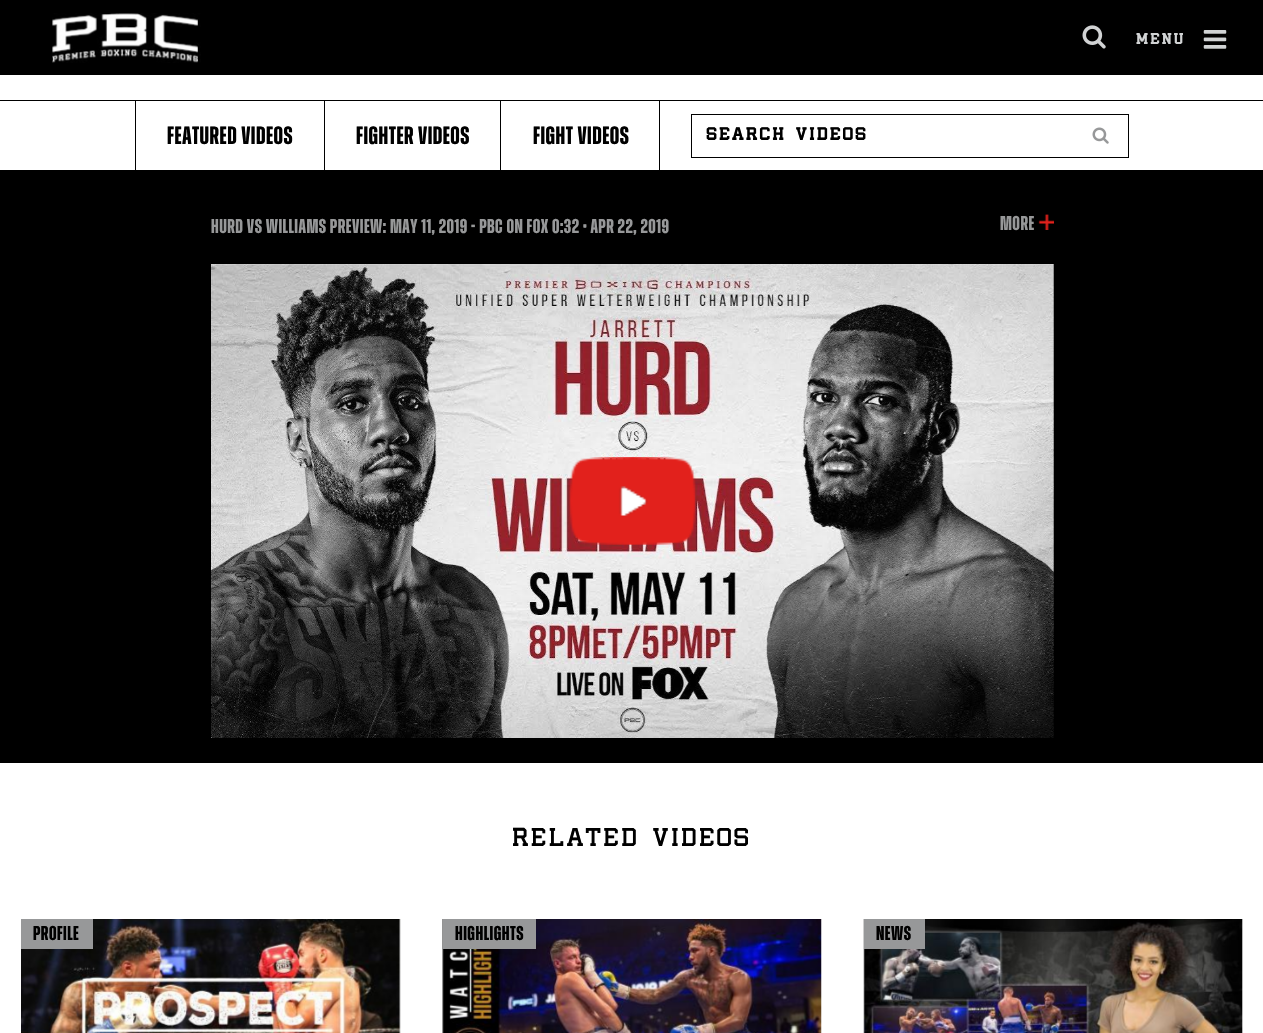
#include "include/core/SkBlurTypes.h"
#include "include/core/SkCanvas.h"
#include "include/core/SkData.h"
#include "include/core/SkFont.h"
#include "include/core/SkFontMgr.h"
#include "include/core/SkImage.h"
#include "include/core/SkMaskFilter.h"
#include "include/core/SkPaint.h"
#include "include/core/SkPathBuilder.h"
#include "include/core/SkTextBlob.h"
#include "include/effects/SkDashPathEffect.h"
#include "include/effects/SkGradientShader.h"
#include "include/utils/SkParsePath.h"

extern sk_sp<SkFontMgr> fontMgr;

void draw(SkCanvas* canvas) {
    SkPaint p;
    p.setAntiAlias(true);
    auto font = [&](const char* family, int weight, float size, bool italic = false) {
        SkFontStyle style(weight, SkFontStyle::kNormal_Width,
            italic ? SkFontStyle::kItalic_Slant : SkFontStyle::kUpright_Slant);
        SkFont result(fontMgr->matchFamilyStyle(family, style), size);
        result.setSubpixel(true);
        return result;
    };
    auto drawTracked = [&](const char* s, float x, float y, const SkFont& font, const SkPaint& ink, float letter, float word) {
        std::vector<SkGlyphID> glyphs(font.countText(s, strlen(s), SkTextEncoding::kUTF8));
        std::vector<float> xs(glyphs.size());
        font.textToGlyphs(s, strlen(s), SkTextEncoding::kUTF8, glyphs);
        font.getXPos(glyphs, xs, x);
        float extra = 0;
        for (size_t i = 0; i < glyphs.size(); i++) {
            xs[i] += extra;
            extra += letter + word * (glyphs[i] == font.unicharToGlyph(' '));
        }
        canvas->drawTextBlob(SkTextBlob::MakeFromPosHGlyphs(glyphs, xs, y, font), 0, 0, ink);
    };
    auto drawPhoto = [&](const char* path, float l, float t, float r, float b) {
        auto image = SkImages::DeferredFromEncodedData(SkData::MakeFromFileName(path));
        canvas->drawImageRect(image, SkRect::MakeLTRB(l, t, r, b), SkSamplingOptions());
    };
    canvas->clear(0xFFFFFFFF);
    p.setColor(0xFF000000);
    canvas->drawRect(SkRect::MakeLTRB(0, 0, 1263, 75), p);
    drawPhoto("media/1.png", 52, 13, 201, 63);
    drawPhoto("media/2.png", 1082, 25, 1106, 49);
    auto font1 = font("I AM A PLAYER", 700, 15);
    p.setColor(0xFFD1D3D4);
    drawTracked("MENU", 1136, 44, font1, p, 2.5f, 0);
    drawPhoto("media/3.png", 1203, 30, 1227, 49);
    {
        const struct { float l, t, r, b; SkColor color; } items[] = {
            {0, 100, 1263, 101, 0xFF000000},
            {0, 170, 1263, 763, 0xFF000000},
            {135, 101, 136, 171, 0xFF000000},
        };
        for (auto [l, t, r, b, color] : items) {
            p.setColor(color);
            canvas->drawRect(SkRect::MakeLTRB(l, t, r, b), p);
        }
    }
    auto font2 = font("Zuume", 700, 25);
    drawTracked("FEATURED VIDEOS", 167, 144, font2, p, 0.5f, 0);
    canvas->drawRect(SkRect::MakeLTRB(324, 101, 325, 171), p);
    drawTracked("FIGHTER VIDEOS", 356, 144, font2, p, 0.5f, 0);
    canvas->drawRect(SkRect::MakeLTRB(500, 101, 501, 171), p);
    drawTracked("FIGHT VIDEOS", 533, 144, font2, p, 0.5f, 0);
    canvas->drawRect(SkRect::MakeLTRB(659, 101, 660, 171), p);
    p.setStyle(SkPaint::kStroke_Style);
    p.setStrokeWidth(1);
    canvas->drawRect(SkRect::MakeLTRB(691.5f, 114.5f, 1128.5f, 157.5f), p);
    auto font3 = font("I AM A PLAYER", 700, 17.5f);
    p.setStyle(SkPaint::kFill_Style);
    drawTracked("SEARCH VIDEOS", 706, 140, font3, p, 2.5f, 0);
    drawPhoto("media/4.png", 1092, 127, 1109, 144);
    auto font4 = font("Zuume", 700, 20);
    p.setColor(0xFF979899);
    drawTracked("HURD VS WILLIAMS PREVIEW: MAY 11, 2019 - PBC ON FOX 0:32 • APR 22, 2019", 211, 233, font4, p, 0.5f, 0);
    drawTracked("MORE", 1000, 230, font4, p, 0.5f, 0);
    drawPhoto("media/5.png", 1038, 214, 1054, 230);
    drawPhoto("media/6.png", 211, 264, 1054, 738);
    drawPhoto("media/7.png", 569, 457, 696, 545);
    auto font5 = font("I AM A PLAYER", 400, 25.75f);
    p.setColor(0xFF000000);
    drawTracked("RELATED VIDEOS", 512, 846, font5, p, 2.5f, 0);
    drawPhoto("media/8.png", 21, 919, 401, 1033);
    p.setColor(0xFF979899);
    canvas->drawRect(SkRect::MakeLTRB(21, 919, 93, 949), p);
    p.setColor(0xFF000000);
    drawTracked("PROFILE", 33, 940, font4, p, 0.5f, 0);
    drawPhoto("media/9.png", 442, 919, 822, 1033);
    p.setColor(0xFF979899);
    canvas->drawRect(SkRect::MakeLTRB(443, 919, 536, 949), p);
    p.setColor(0xFF000000);
    drawTracked("HIGHLIGHTS", 455, 940, font4, p, 0.5f, 0);
    drawPhoto("media/10.png", 863, 919, 1243, 1033);
    p.setColor(0xFF979899);
    canvas->drawRect(SkRect::MakeLTRB(864, 919, 925, 949), p);
    p.setColor(0xFF000000);
    drawTracked("NEWS", 876, 940, font4, p, 0.5f, 0);
}
